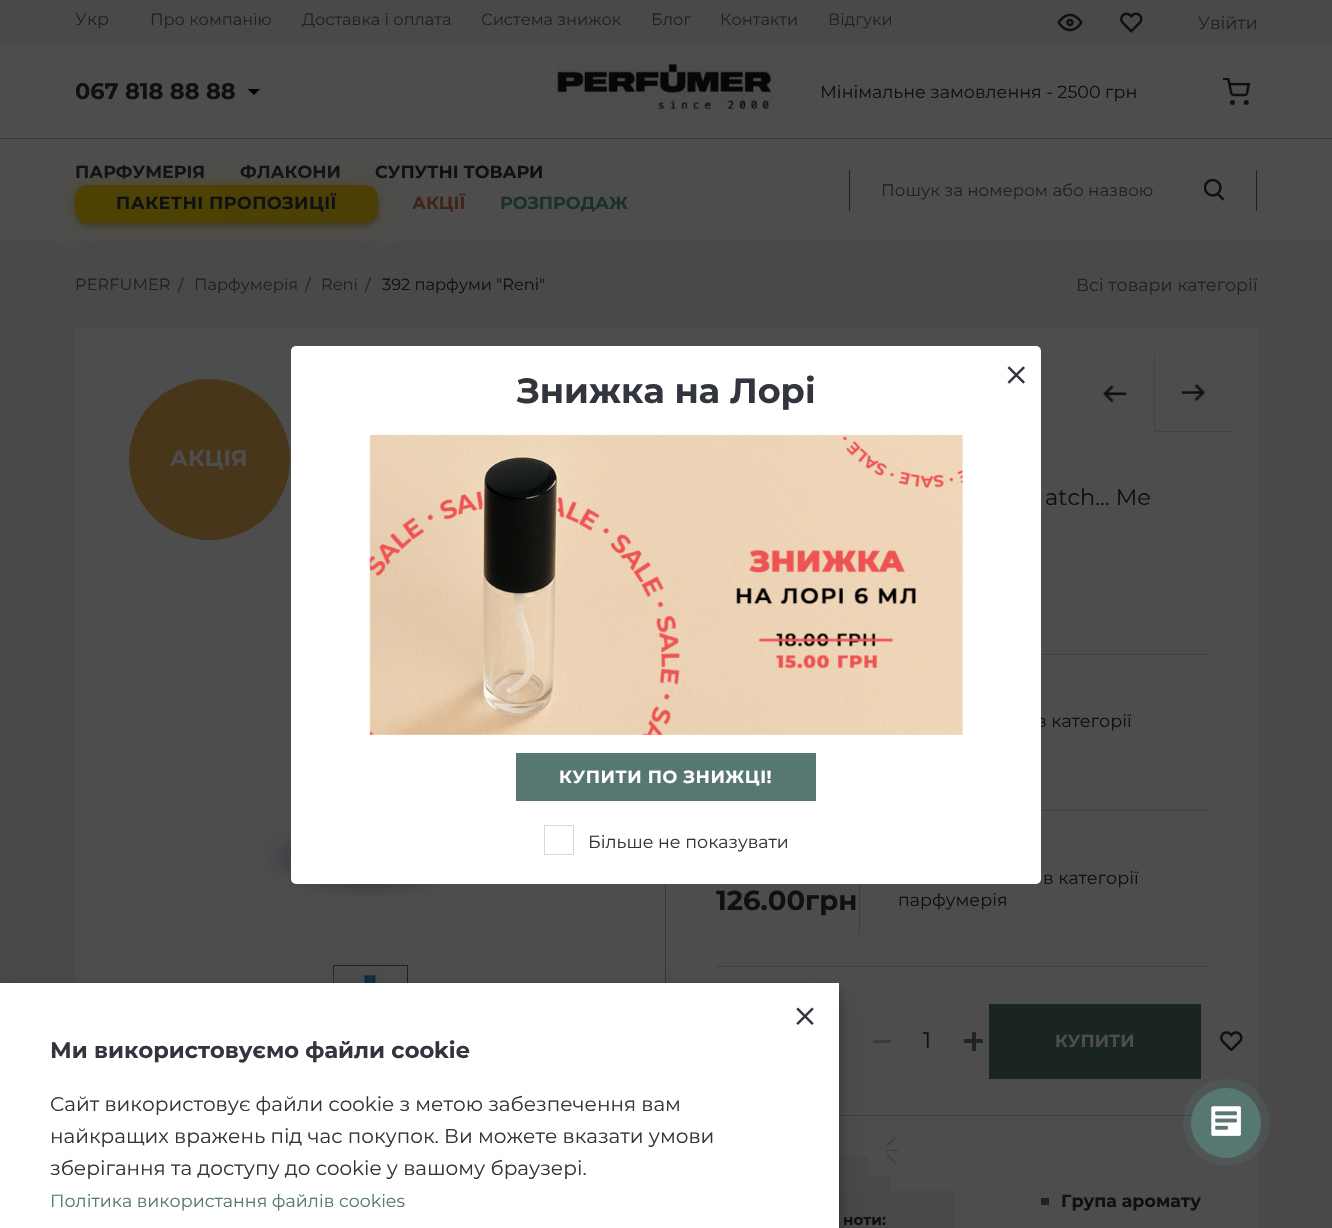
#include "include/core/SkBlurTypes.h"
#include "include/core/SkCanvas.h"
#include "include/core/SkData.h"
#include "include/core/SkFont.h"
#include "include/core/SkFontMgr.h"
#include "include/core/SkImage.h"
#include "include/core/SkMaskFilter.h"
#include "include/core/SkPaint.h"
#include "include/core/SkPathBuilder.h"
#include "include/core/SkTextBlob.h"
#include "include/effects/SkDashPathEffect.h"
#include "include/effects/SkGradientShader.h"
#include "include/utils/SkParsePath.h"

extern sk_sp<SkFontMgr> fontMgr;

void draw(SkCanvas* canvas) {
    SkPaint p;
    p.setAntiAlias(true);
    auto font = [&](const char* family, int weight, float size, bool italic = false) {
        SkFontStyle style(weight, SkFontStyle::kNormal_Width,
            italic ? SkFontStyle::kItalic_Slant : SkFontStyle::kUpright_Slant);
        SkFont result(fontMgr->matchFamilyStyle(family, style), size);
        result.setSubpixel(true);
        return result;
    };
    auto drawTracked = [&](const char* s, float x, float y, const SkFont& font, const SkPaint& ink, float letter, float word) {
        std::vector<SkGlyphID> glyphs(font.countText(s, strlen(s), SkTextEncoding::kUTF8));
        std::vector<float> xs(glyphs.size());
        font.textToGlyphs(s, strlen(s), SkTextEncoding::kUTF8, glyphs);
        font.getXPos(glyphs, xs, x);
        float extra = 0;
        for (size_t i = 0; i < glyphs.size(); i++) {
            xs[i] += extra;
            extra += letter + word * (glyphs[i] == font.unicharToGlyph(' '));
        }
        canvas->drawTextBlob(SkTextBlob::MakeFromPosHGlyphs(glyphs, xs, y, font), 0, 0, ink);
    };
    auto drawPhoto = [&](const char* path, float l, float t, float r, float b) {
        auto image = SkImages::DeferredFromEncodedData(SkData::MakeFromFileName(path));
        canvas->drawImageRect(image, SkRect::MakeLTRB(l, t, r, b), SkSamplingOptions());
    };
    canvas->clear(0xFF4A4948);
    p.setColor(0xFF4D4D4D);
    canvas->drawRect(SkRect::MakeLTRB(0, 45, 1332, 241), p);
    auto font1 = font("Montserrat", 400, 17.5f);
    p.setColor(0xFF1A2422);
    canvas->drawString("Укр", 75, 25, font1, p);
    auto font2 = font("Montserrat", 400, 16.25f);
    {
        const struct { const char* s; float x, y; } items[] = {
            {"Про компанію", 150, 25},
            {"Доставка і оплата", 302, 25},
            {"Система знижок", 481, 25},
            {"Блог", 651, 25},
            {"Контакти", 720, 25},
            {"Відгуки", 828, 25},
        };
        for (auto [s, x, y] : items) {
            canvas->drawString(s, x, y, font2, p);
        }
    }
    drawPhoto("media/1.png", 1057, 13, 1083, 32);
    drawPhoto("media/2.png", 1120, 12, 1143, 33);
    canvas->drawString("Увійти", 1198, 29, font1, p);
    p.setColor(0xFF333838);
    canvas->drawRect(SkRect::MakeLTRB(0, 138, 1332, 139), p);
    auto font3 = font("Montserrat", 700, 22.5f);
    p.setColor(0xFF0F1013);
    canvas->drawString("067 818 88 88", 75, 99, font3, p);
    p.setColor(0xFF000000);
    canvas->drawPath(SkPathBuilder().moveTo(247.5f, 89).lineTo(260, 89).lineTo(254, 95).close().detach(), p);
    drawPhoto("media/3.png", 555, 62, 773, 110);
    p.setColor(0xFF0F1013);
    canvas->drawString("Мінімальне замовлення - 2500 грн", 820, 98, font1, p);
    drawPhoto("media/4.png", 1223, 78, 1251, 105);
    auto font4 = font("Montserrat", 700, 17.5f);
    {
        const struct { const char* s; float x, y; } items[] = {
            {"ПАРФУМЕРІЯ", 75, 178},
            {"ФЛАКОНИ", 240, 178},
            {"СУПУТНІ ТОВАРИ", 375, 178},
        };
        for (auto [s, x, y] : items) {
            canvas->drawString(s, x, y, font4, p);
        }
    }
    p.setColor(0x804C3F06);
    p.setMaskFilter(SkMaskFilter::MakeBlur(kNormal_SkBlurStyle, 12.5f));
    canvas->drawRoundRect(SkRect::MakeLTRB(75, 185, 378, 223), 13, 13, p);
    p.setMaskFilter(nullptr);
    p.setColor(0x33000000);
    p.setMaskFilter(SkMaskFilter::MakeBlur(kNormal_SkBlurStyle, 2.5f));
    canvas->drawRoundRect(SkRect::MakeLTRB(75, 189, 378, 226), 13, 13, p);
    p.setMaskFilter(nullptr);
    {
        const SkColor colors[] = {0xFF4D4302, 0xFF4C3E07};
        const float stops[] = {0, 1};
        const SkPoint ends[] = {{-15, 204}, {458, 204}};
        p.setShader(SkGradientShader::MakeLinear(ends, colors, stops, 2, SkTileMode::kClamp));
        p.setAlpha(255);
    }
    canvas->drawRoundRect(SkRect::MakeLTRB(75, 185, 378, 223), 13, 13, p);
    p.setShader(nullptr);
    p.setColor(0xFF0F1013);
    drawTracked("ПАКЕТНІ ПРОПОЗИЦІЇ", 116, 209, font4, p, 0.5f, 0);
    p.setColor(0xFF422316);
    canvas->drawString("АКЦІЇ", 412, 209, font4, p);
    p.setColor(0xFF19302C);
    canvas->drawString("РОЗПРОДАЖ", 500, 209, font4, p);
    p.setColor(0xFF1A2422);
    canvas->drawRect(SkRect::MakeLTRB(1256, 170, 1257, 211), p);
    canvas->drawRect(SkRect::MakeLTRB(849, 170, 850, 211), p);
    auto font5 = font("Montserrat", 400, 16.7f);
    canvas->drawString("Пошук за номером або назвою", 881, 196, font5, p);
    drawPhoto("media/5.png", 1204, 179, 1225, 201);
    {
        const struct { const char* s; float x, y; } items[] = {
            {"PERFUMER", 75, 290},
            {"/", 178, 291},
            {"Парфумерія", 194, 290},
            {"/", 305, 291},
            {"Reni", 321, 290},
            {"/", 365, 291},
        };
        for (auto [s, x, y] : items) {
            canvas->drawString(s, x, y, font2, p);
        }
    }
    p.setColor(0xFF0F1013);
    canvas->drawString("392 парфуми \"Reni\"", 382, 290, font2, p);
    p.setColor(0xFF1A2422);
    canvas->drawString("Всі товари категорії", 1076, 291, font1, p);
    p.setColor(0xFF4D4D4D);
    canvas->drawRect(SkRect::MakeLTRB(75, 329, 1258, 1228), p);
    drawPhoto("media/8.png", 264, 500, 477, 897);
    p.setColor(0xFF0F1013);
    canvas->drawString("в категорії", 1036, 727, font1, p);
    p.setColor(0xFFFFFFFF);
    canvas->drawRoundRect(SkRect::MakeLTRB(291, 346, 1041, 884), 5, 5, p);
    auto font6 = font("Montserrat", 700, 35);
    p.setColor(0xFF32343E);
    canvas->drawString("Знижка на Лорі", 517, 403, font6, p);
    drawPhoto("media/6.png", 369, 435, 963, 735);
    p.setColor(0xFF577872);
    canvas->drawRect(SkRect::MakeLTRB(516, 753, 816, 801), p);
    p.setColor(0xFFFFFFFF);
    drawTracked("КУПИТИ ПО ЗНИЖЦІ!", 559, 783, font4, p, 0.6f, 0);
    p.setStyle(SkPaint::kStroke_Style);
    p.setStrokeWidth(1);
    p.setColor(0xFFDDD8D3);
    canvas->drawRect(SkRect::MakeLTRB(544.5f, 825.5f, 573.5f, 854.5f), p);
    p.setStyle(SkPaint::kFill_Style);
    p.setColor(0xFF32343E);
    canvas->drawString("Більше не показувати", 588, 848, font1, p);
    drawPhoto("media/7.png", 1007, 366, 1025, 384);
    p.setColor(0xFF1D2624);
    canvas->drawRect(SkRect::MakeLTRB(964, 1039, 983, 1043), p);
    p.setColor(0xFF333838);
    canvas->drawRect(SkRect::MakeLTRB(665, 884, 666, 983), p);
    p.setColor(0xFF48361B);
    canvas->drawCircle(209.5f, 459.5f, 80.5f, p);
    p.setColor(0xFF4D4D4D);
    canvas->drawString("АКЦІЯ", 170, 466, font3, p);
    p.setStyle(SkPaint::kStroke_Style);
    p.setColor(0xFF1A2422);
    canvas->drawRect(SkRect::MakeLTRB(333.5f, 965.5f, 407.5f, 1039.5f), p);
    drawPhoto("media/9.png", 333, 970, 386, 983);
    drawPhoto("media/10.png", 1102, 385, 1127, 403);
    p.setStyle(SkPaint::kFill_Style);
    p.setColor(0xFF424444);
    canvas->drawPath(SkPathBuilder().moveTo(1232, 432).lineTo(1154, 432).lineTo(1155, 431).lineTo(1232, 431).close().detach(), p);
    p.setColor(0x331A2422);
    canvas->drawPath(SkPathBuilder().moveTo(1154, 432).lineTo(1154, 354).lineTo(1155, 354).lineTo(1155, 431).close().detach(), p);
    drawPhoto("media/11.png", 1181, 383, 1206, 402);
    p.setColor(0xFF3E4140);
    canvas->drawRect(SkRect::MakeLTRB(716, 966, 1208, 967), p);
    auto font7 = font("Montserrat", 400, 22.5f);
    p.setColor(0xFF0F1013);
    canvas->drawString("atch… Me", 1045, 505, font7, p);
    {
        const struct { float l, t, r, b; SkColor color; } items[] = {
            {1041, 654, 1208, 655, 0xFF3E4140},
            {1041, 810, 1208, 811, 0xFF3E4140},
            {859, 884, 860, 935, 0xFF3E4140},
        };
        for (auto [l, t, r, b, color] : items) {
            p.setColor(color);
            canvas->drawRect(SkRect::MakeLTRB(l, t, r, b), p);
        }
    }
    auto font8 = font("Montserrat", 700, 27.5f);
    p.setColor(0xFF0F1013);
    canvas->drawString("126.00грн", 716, 910, font8, p);
    canvas->drawString("в категорії", 1043, 884, font1, p);
    canvas->drawString("парфумерія", 898, 906, font1, p);
    p.setColor(0xFF3E4140);
    canvas->drawRect(SkRect::MakeLTRB(839, 1115, 1192, 1116), p);
    p.setColor(0xFF383C3B);
    canvas->drawRect(SkRect::MakeLTRB(873, 1040, 891, 1043), p);
    p.setColor(0xFF0F1013);
    canvas->drawString("1", 923, 1048, font7, p);
    {
        const struct { float l, t, r, b; SkColor color; } items[] = {
            {972, 1032, 976, 1051, 0xFF1D2624},
            {972, 1039, 976, 1043, 0xFF1A2422},
            {989, 1004, 1201, 1079, 0xFF1A2422},
        };
        for (auto [l, t, r, b, color] : items) {
            p.setColor(color);
            canvas->drawRect(SkRect::MakeLTRB(l, t, r, b), p);
        }
    }
    p.setColor(0xFF4D4D4D);
    canvas->drawString("КУПИТИ", 1055, 1047, font4, p);
    drawPhoto("media/12.png", 1220, 1031, 1243, 1051);
    p.setColor(0xFF1A2422);
    canvas->drawRect(SkRect::MakeLTRB(1041, 1198, 1049, 1205), p);
    p.setColor(0xFF0F1013);
    canvas->drawString("Група аромату", 1061, 1207, font4, p);
    p.setColor(0xFF383C3C);
    canvas->drawRect(SkRect::MakeLTRB(885, 1150, 898, 1151), p);
    canvas->drawPath(SkPathBuilder().moveTo(886.5f, 1145.5f).lineTo(895, 1136.5f).lineTo(896, 1137.5f).lineTo(887.5f, 1146.5f).close().moveTo(887.5f, 1154).lineTo(896, 1163).lineTo(895, 1164).lineTo(886.5f, 1155).close().detach(), p);
    {
        const struct { float l, t, r, b; SkColor color; } items[] = {
            {839, 1156, 868, 1176, 0xFF484949},
            {839, 1176, 891, 1191, 0xFF484949},
            {839, 1191, 954, 1228, 0xFF474948},
        };
        for (auto [l, t, r, b, color] : items) {
            p.setColor(color);
            canvas->drawRect(SkRect::MakeLTRB(l, t, r, b), p);
        }
    }
    auto font9 = font("Montserrat", 700, 15);
    p.setColor(0xFF0F1013);
    canvas->drawString("ноти:", 843, 1225, font9, p);
    p.setColor(0x33577872);
    canvas->drawCircle(1226.5f, 1122.5f, 43.5f, p);
    p.setColor(0xFF577872);
    canvas->drawCircle(1226, 1123, 34.5f, p);
    p.setStyle(SkPaint::kStroke_Style);
    canvas->drawCircle(1226, 1123, 34.5f, p);
    drawPhoto("media/13.png", 1211, 1106, 1241, 1136);
    p.setStyle(SkPaint::kFill_Style);
    p.setColor(0x3B000000);
    p.setMaskFilter(SkMaskFilter::MakeBlur(kNormal_SkBlurStyle, 4));
    canvas->drawRect(SkRect::MakeLTRB(0, 990, 839, 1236), p);
    p.setMaskFilter(nullptr);
    p.setColor(0x30000000);
    p.setMaskFilter(SkMaskFilter::MakeBlur(kNormal_SkBlurStyle, 12.5f));
    canvas->drawRect(SkRect::MakeLTRB(0, 995, 839, 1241), p);
    p.setMaskFilter(nullptr);
    p.setColor(0xFFFFFFFF);
    canvas->drawRect(SkRect::MakeLTRB(0, 983, 839, 1228), p);
    drawPhoto("media/14.png", 796, 1007, 814, 1025);
    p.setColor(0xFF32343E);
    canvas->drawString("Ми використовуємо файли cookie", 50, 1058, font3, p);
    auto font10 = font("Montserrat", 400, 20);
    {
        const struct { const char* s; float x, y; } items[] = {
            {"Сайт використовує файли cookie з метою забезпечення вам", 50, 1111},
            {"найкращих вражень під час покупок. Ви можете вказати умови", 50, 1143},
            {"зберігання та доступу до cookie у вашому браузері.", 50, 1175},
        };
        for (auto [s, x, y] : items) {
            canvas->drawString(s, x, y, font10, p);
        }
    }
    p.setColor(0xFF577872);
    canvas->drawString("Політика використання файлів cookies", 50, 1207, font1, p);
}
